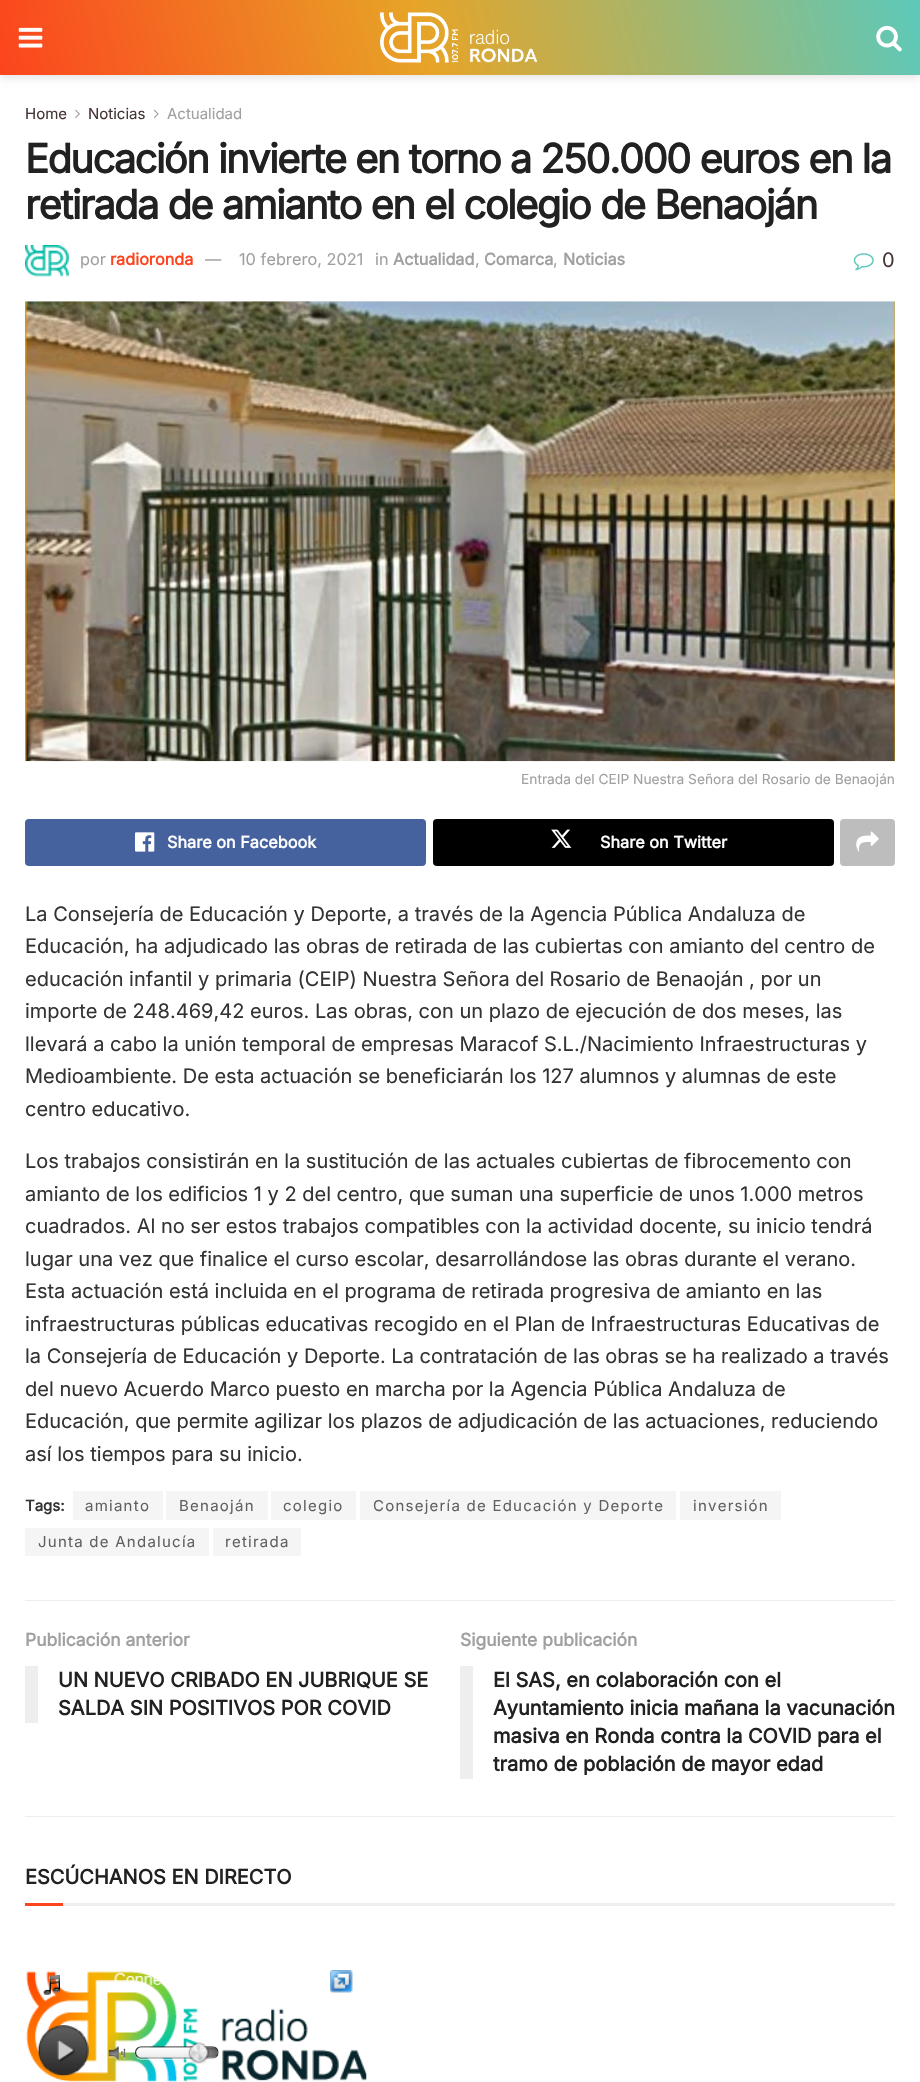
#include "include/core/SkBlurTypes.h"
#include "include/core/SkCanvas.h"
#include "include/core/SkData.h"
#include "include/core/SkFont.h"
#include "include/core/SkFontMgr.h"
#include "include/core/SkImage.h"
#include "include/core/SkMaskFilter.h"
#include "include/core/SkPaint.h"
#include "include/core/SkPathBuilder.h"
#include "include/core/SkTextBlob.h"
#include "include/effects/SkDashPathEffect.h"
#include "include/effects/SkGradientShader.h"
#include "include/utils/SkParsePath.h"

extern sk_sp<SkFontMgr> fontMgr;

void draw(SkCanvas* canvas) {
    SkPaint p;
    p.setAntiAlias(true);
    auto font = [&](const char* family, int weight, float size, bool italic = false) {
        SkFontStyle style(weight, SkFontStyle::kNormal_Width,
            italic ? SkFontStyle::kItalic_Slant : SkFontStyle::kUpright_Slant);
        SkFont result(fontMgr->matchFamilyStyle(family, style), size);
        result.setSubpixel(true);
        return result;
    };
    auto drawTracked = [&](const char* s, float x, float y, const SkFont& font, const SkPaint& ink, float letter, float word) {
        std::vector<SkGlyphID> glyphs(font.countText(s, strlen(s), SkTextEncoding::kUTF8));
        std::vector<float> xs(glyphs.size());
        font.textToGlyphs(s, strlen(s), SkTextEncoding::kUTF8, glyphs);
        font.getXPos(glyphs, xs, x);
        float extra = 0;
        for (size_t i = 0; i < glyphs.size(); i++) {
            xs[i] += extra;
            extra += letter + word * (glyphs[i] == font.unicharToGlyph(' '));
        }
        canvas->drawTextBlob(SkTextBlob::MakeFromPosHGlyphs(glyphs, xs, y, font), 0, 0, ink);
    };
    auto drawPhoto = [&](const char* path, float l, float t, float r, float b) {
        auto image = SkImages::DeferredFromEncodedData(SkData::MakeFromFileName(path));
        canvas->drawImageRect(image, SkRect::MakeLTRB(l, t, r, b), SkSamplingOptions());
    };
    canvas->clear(0xFFFFFFFF);
    p.setColor(0x1A000000);
    p.setMaskFilter(SkMaskFilter::MakeBlur(kNormal_SkBlurStyle, 4));
    canvas->drawRect(SkRect::MakeLTRB(0, 3, 920, 78), p);
    p.setMaskFilter(nullptr);
    {
        const SkColor colors[] = {0xFFFC441E, 0xFFE7A427, 0xFF5CC9BA};
        const float stops[] = {0, 0.46f, 1};
        const SkPoint ends[] = {{21, 155}, {899, -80}};
        p.setShader(SkGradientShader::MakeLinear(ends, colors, stops, 3, SkTileMode::kClamp));
        p.setAlpha(255);
    }
    canvas->drawRect(SkRect::MakeLTRB(0, 0, 920, 75), p);
    drawPhoto("media/1.png", 18, 27, 43, 48);
    drawPhoto("media/2.png", 380, 12, 538, 63);
    drawPhoto("media/3.png", 876, 25, 902, 52);
    auto font1 = font("Inter", 400, 15);
    p.setShader(nullptr);
    p.setColor(0xFF473434);
    canvas->drawString("Home", 25, 119, font1, p);
    drawPhoto("media/4.png", 75, 109, 80, 118);
    canvas->drawString("Noticias", 88, 119, font1, p);
    drawPhoto("media/5.png", 153, 109, 159, 118);
    p.setColor(0xFFA0A0A0);
    canvas->drawString("Actualidad", 167, 119, font1, p);
    auto font2 = font("Inter", 700, 40);
    p.setColor(0xFF212121);
    drawTracked("Educación invierte en torno a 250.000 euros en la", 25, 173, font2, p, -1.6f, 0);
    drawTracked("retirada de amianto en el colegio de Benaoján", 25, 219, font2, p, -1.6f, 0);
    drawPhoto("media/6.png", 25, 245, 69, 277);
    auto font3 = font("Inter", 400, 16.25f);
    p.setColor(0xFFA0A0A0);
    canvas->drawString("por", 80, 265, font3, p);
    auto font4 = font("Inter", 700, 16.25f);
    p.setColor(0xFFFC441E);
    canvas->drawString("radioronda", 110, 265, font4, p);
    p.setColor(0xFFA0A0A0);
    {
        const struct { const char* s; float x, y; } items[] = {
            {"—", 205, 265},
            {"10 febrero, 2021", 239, 265},
            {"in", 375, 265},
        };
        for (auto [s, x, y] : items) {
            canvas->drawString(s, x, y, font3, p);
        }
    }
    canvas->drawString("Actualidad", 393, 265, font4, p);
    canvas->drawString(",", 475, 265, font3, p);
    canvas->drawString("Comarca", 484, 265, font4, p);
    canvas->drawString(",", 553, 265, font3, p);
    canvas->drawString("Noticias", 563, 265, font4, p);
    drawPhoto("media/7.png", 853, 253, 874, 271);
    auto font5 = font("Inter", 400, 20);
    p.setColor(0xFF473434);
    canvas->drawString("0", 882, 267, font5, p);
    p.setColor(0xFFF7F7F7);
    canvas->drawRect(SkRect::MakeLTRB(25, 301, 895, 302), p);
    drawPhoto("media/9.png", 247, 301, 412, 302);
    drawPhoto("media/8.png", 25, 301, 895, 762);
    auto font6 = font("Inter", 400, 13.75f);
    p.setColor(0xFFA0A0A0);
    canvas->drawString("Entrada del CEIP Nuestra Señora del Rosario de Benaoján", 521, 784, font6, p);
    p.setColor(0xFF45629F);
    canvas->drawRoundRect(SkRect::MakeLTRB(25, 819, 426, 866), 4, 4, p);
    drawPhoto("media/10.png", 135, 832, 155, 852);
    p.setColor(0xFFFFFFFF);
    canvas->drawString("Share on Facebook", 167, 848, font4, p);
    p.setColor(0xFF000000);
    canvas->drawRoundRect(SkRect::MakeLTRB(433, 819, 834, 866), 4, 4, p);
    drawPhoto("media/11.png", 551, 829, 572, 848);
    p.setColor(0xFFFFFFFF);
    canvas->drawString("Share on Twitter", 600, 848, font4, p);
    p.setColor(0xFFBDBDBD);
    canvas->drawRoundRect(SkRect::MakeLTRB(840, 819, 895, 866), 4, 4, p);
    drawPhoto("media/12.png", 856, 831, 879, 852);
    p.setColor(0xFF333333);
    {
        const struct { const char* s; float x, y; } items[] = {
            {"La Consejería de Educación y Deporte, a través de la Agencia Pública Andaluza de", 25, 921},
            {"Educación, ha adjudicado las obras de retirada de las cubiertas con amianto del centro de", 25, 953},
            {"educación infantil y primaria (CEIP) Nuestra Señora del Rosario de Benaoján , por un", 25, 986},
            {"importe de 248.469,42 euros. Las obras, con un plazo de ejecución de dos meses, las", 25, 1018},
            {"llevará a cabo la unión temporal de empresas Maracof S.L./Nacimiento Infraestructuras y", 25, 1051},
            {"Medioambiente. De esta actuación se beneficiarán los 127 alumnos y alumnas de este", 25, 1083},
            {"centro educativo.", 25, 1116},
            {"Los trabajos consistirán en la sustitución de las actuales cubiertas de fibrocemento con", 25, 1168},
            {"amianto de los edificios 1 y 2 del centro, que suman una superficie de unos 1.000 metros", 25, 1201},
            {"cuadrados. Al no ser estos trabajos compatibles con la actividad docente, su inicio tendrá", 25, 1233},
            {"lugar una vez que finalice el curso escolar, desarrollándose las obras durante el verano.", 25, 1266},
            {"Esta actuación está incluida en el programa de retirada progresiva de amianto en las", 25, 1298},
            {"infraestructuras públicas educativas recogido en el Plan de Infraestructuras Educativas de", 25, 1331},
            {"la Consejería de Educación y Deporte. La contratación de las obras se ha realizado a través", 25, 1363},
            {"del nuevo Acuerdo Marco puesto en marcha por la Agencia Pública Andaluza de", 25, 1396},
            {"Educación, que permite agilizar los plazos de adjudicación de las actuaciones, reduciendo", 25, 1428},
            {"así los tiempos para su inicio.", 25, 1461},
        };
        for (auto [s, x, y] : items) {
            canvas->drawString(s, x, y, font5, p);
        }
    }
    auto font7 = font("Inter", 700, 15);
    canvas->drawString("Tags:", 25, 1511, font7, p);
    p.setColor(0xFFF5F5F5);
    canvas->drawRect(SkRect::MakeLTRB(73, 1491, 163, 1520), p);
    p.setColor(0xFF616161);
    drawTracked("amianto", 85, 1511, font1, p, 1.25f, 0);
    p.setColor(0xFFF5F5F5);
    canvas->drawRect(SkRect::MakeLTRB(166, 1491, 268, 1520), p);
    p.setColor(0xFF616161);
    drawTracked("Benaoján", 179, 1511, font1, p, 1.25f, 0);
    p.setColor(0xFFF5F5F5);
    canvas->drawRect(SkRect::MakeLTRB(271, 1491, 356, 1520), p);
    p.setColor(0xFF616161);
    drawTracked("colegio", 283, 1511, font1, p, 1.25f, 0);
    p.setColor(0xFFF5F5F5);
    canvas->drawRect(SkRect::MakeLTRB(360, 1491, 676, 1520), p);
    p.setColor(0xFF616161);
    drawTracked("Consejería de Educación y Deporte", 373, 1511, font1, p, 1.25f, 0);
    p.setColor(0xFFF5F5F5);
    canvas->drawRect(SkRect::MakeLTRB(680, 1491, 781, 1520), p);
    p.setColor(0xFF616161);
    drawTracked("inversión", 693, 1511, font1, p, 1.25f, 0);
    p.setColor(0xFFF5F5F5);
    canvas->drawRect(SkRect::MakeLTRB(25, 1528, 209, 1556), p);
    p.setColor(0xFF616161);
    drawTracked("Junta de Andalucía", 38, 1547, font1, p, 1.25f, 0);
    p.setColor(0xFFF5F5F5);
    canvas->drawRect(SkRect::MakeLTRB(213, 1528, 301, 1556), p);
    p.setColor(0xFF616161);
    drawTracked("retirada", 225, 1547, font1, p, 1.25f, 0);
    p.setColor(0xFFEEEEEE);
    canvas->drawRect(SkRect::MakeLTRB(25, 1600, 895, 1601), p);
    canvas->drawRect(SkRect::MakeLTRB(25, 1816, 895, 1817), p);
    auto font8 = font("Inter", 700, 17.5f);
    p.setColor(0xFFA0A0A0);
    canvas->drawString("Publicación anterior", 25, 1646, font8, p);
    p.setColor(0xFFEEEEEE);
    canvas->drawRect(SkRect::MakeLTRB(25, 1666, 38, 1723), p);
    auto font9 = font("Inter", 700, 20);
    p.setColor(0xFF212121);
    canvas->drawString("UN NUEVO CRIBADO EN JUBRIQUE SE", 58, 1687, font9, p);
    canvas->drawString("SALDA SIN POSITIVOS POR COVID", 58, 1715, font9, p);
    p.setColor(0xFFA0A0A0);
    canvas->drawString("Siguiente publicación", 460, 1646, font8, p);
    p.setColor(0xFFEEEEEE);
    canvas->drawRect(SkRect::MakeLTRB(460, 1666, 473, 1779), p);
    p.setColor(0xFF212121);
    {
        const struct { const char* s; float x, y; } items[] = {
            {"El SAS, en colaboración con el", 493, 1687},
            {"Ayuntamiento inicia mañana la vacunación", 493, 1715},
            {"masiva en Ronda contra la COVID para el", 493, 1743},
            {"tramo de población de mayor edad", 493, 1771},
        };
        for (auto [s, x, y] : items) {
            canvas->drawString(s, x, y, font9, p);
        }
    }
    p.setColor(0xFFEEEEEE);
    canvas->drawRect(SkRect::MakeLTRB(63, 1903, 895, 1906), p);
    p.setColor(0xFF212121);
    canvas->drawString("ESCÚCHANOS EN DIRECTO", 25, 1884, font9, p);
    p.setColor(0xFFFC441E);
    canvas->drawRect(SkRect::MakeLTRB(25, 1903, 63, 1906), p);
    drawPhoto("media/13.png", 26, 1970, 367, 2082);
}
